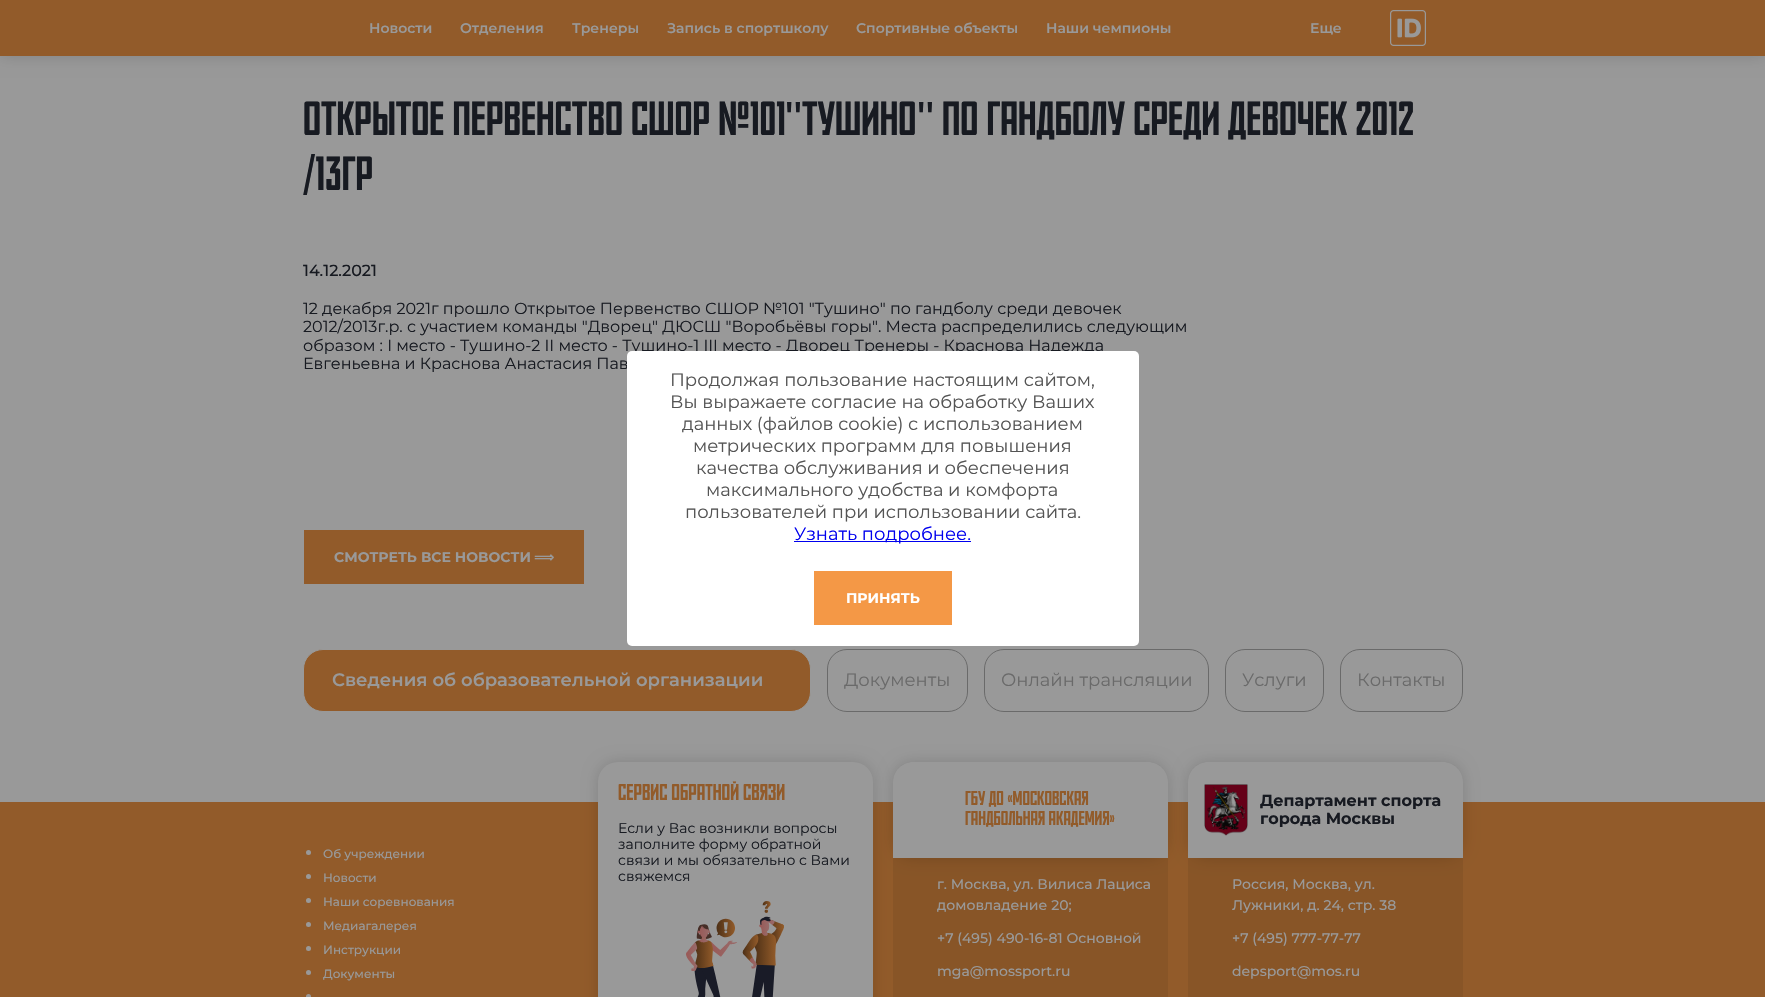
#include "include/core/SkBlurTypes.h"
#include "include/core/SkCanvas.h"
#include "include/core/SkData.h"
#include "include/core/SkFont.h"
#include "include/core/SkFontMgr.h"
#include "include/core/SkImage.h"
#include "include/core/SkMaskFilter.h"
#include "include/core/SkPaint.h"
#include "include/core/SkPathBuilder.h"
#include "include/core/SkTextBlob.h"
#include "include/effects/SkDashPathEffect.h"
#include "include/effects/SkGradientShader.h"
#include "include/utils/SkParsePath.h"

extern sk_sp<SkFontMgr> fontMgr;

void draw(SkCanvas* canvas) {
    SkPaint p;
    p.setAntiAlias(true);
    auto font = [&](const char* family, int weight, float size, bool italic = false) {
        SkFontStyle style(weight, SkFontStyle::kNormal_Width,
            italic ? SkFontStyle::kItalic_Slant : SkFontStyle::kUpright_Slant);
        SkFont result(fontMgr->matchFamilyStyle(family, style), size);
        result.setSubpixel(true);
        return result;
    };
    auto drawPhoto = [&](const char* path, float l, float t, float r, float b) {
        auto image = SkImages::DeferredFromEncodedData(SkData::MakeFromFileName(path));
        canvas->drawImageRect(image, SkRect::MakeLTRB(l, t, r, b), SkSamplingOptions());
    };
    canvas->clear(0xFF999999);
    p.setColor(0x26000000);
    p.setMaskFilter(SkMaskFilter::MakeBlur(kNormal_SkBlurStyle, 7.5f));
    canvas->drawRect(SkRect::MakeLTRB(0, 0, 1765, 56), p);
    p.setMaskFilter(nullptr);
    p.setColor(0xFF925B2A);
    canvas->drawRect(SkRect::MakeLTRB(0, 0, 1765, 56), p);
    auto font1 = font("Montserrat", 600, 14);
    p.setColor(0xFF999999);
    {
        const struct { const char* s; float x, y; } items[] = {
            {"Новости", 369, 33},
            {"Отделения", 460, 33},
            {"Тренеры", 572, 33},
            {"Запись в спортшколу", 667, 33},
            {"Спортивные объекты", 856, 33},
            {"Наши чемпионы", 1046, 33},
            {"Еще", 1310, 33},
        };
        for (auto [s, x, y] : items) {
            canvas->drawString(s, x, y, font1, p);
        }
    }
    drawPhoto("media/1.png", 1390, 10, 1426, 46);
    auto font2 = font("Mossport", 400, 48);
    p.setColor(0xFF171A21);
    canvas->drawString("ОТКРЫТОЕ ПЕРВЕНСТВО СШОР №101", 303, 135, font2, p);
    auto font3 = font("Liberation Sans", 400, 48);
    canvas->drawString("\"", 785, 135, font3, p);
    canvas->drawString("ТУШИНО", 802, 135, font2, p);
    canvas->drawString("\"", 917, 135, font3, p);
    canvas->drawString("ПО ГАНДБОЛУ СРЕДИ ДЕВОЧЕК 2012", 942, 135, font2, p);
    canvas->drawString("/13ГР", 303, 190, font2, p);
    auto font4 = font("Montserrat", 500, 16);
    canvas->drawString("14.12.2021", 303, 276, font4, p);
    auto font5 = font("Montserrat", 400, 16);
    {
        const struct { const char* s; float x, y; } items[] = {
            {"12 декабря 2021г прошло Открытое Первенство СШОР №101 \"Тушино\" по гандболу среди девочек", 303, 314},
            {"2012/2013г.р. с участием команды \"Дворец\" ДЮСШ \"Воробьёвы горы\". Места распределились следующим", 303, 332},
            {"образом : I место - Тушино-2 II место - Тушино-1 III место - Дворец Тренеры - Краснова Надежда", 303, 351},
            {"Евгеньевна и Краснова Анастасия Пав", 303, 369},
        };
        for (auto [s, x, y] : items) {
            canvas->drawString(s, x, y, font5, p);
        }
    }
    p.setColor(0xFF925B2A);
    canvas->drawRect(SkRect::MakeLTRB(304, 530, 584, 584), p);
    auto font6 = font("Montserrat", 700, 14);
    p.setColor(0xFF999999);
    canvas->drawString("СМОТРЕТЬ ВСЕ НОВОСТИ", 334, 562, font6, p);
    auto font7 = font("DejaVu Sans", 700, 14);
    canvas->drawString("⟹", 534, 562, font7, p);
    p.setColor(0xFF925B2A);
    canvas->drawRoundRect(SkRect::MakeLTRB(303.5f, 649.5f, 810.5f, 711.5f), 19.5f, 19.5f, p);
    p.setStyle(SkPaint::kStroke_Style);
    p.setStrokeWidth(1);
    p.setColor(0xFF999999);
    canvas->drawRoundRect(SkRect::MakeLTRB(303.5f, 649.5f, 810.5f, 711.5f), 19.5f, 19.5f, p);
    auto font8 = font("Montserrat", 600, 18);
    p.setStyle(SkPaint::kFill_Style);
    canvas->drawString("Сведения об образовательной организации", 332, 686, font8, p);
    p.setStyle(SkPaint::kStroke_Style);
    p.setColor(0xFF6A6A6A);
    canvas->drawRoundRect(SkRect::MakeLTRB(827.5f, 649.5f, 967.5f, 711.5f), 19.5f, 19.5f, p);
    auto font9 = font("Montserrat", 400, 18);
    p.setStyle(SkPaint::kFill_Style);
    canvas->drawString("Документы", 844, 686, font9, p);
    p.setStyle(SkPaint::kStroke_Style);
    canvas->drawRoundRect(SkRect::MakeLTRB(984.5f, 649.5f, 1208.5f, 711.5f), 19.5f, 19.5f, p);
    p.setStyle(SkPaint::kFill_Style);
    canvas->drawString("Онлайн трансляции", 1001, 686, font9, p);
    p.setStyle(SkPaint::kStroke_Style);
    canvas->drawRoundRect(SkRect::MakeLTRB(1225.5f, 649.5f, 1323.5f, 711.5f), 19.5f, 19.5f, p);
    p.setStyle(SkPaint::kFill_Style);
    canvas->drawString("Услуги", 1242, 686, font9, p);
    p.setStyle(SkPaint::kStroke_Style);
    canvas->drawRoundRect(SkRect::MakeLTRB(1340.5f, 649.5f, 1462.5f, 711.5f), 19.5f, 19.5f, p);
    p.setStyle(SkPaint::kFill_Style);
    canvas->drawString("Контакты", 1357, 686, font9, p);
    p.setColor(0xFFFFFFFF);
    canvas->drawRoundRect(SkRect::MakeLTRB(627, 351, 1139, 646), 5, 5, p);
    p.setColor(0xFF545454);
    {
        const struct { const char* s; float x, y; } items[] = {
            {"Продолжая пользование настоящим сайтом,", 670, 386},
            {"Вы выражаете согласие на обработку Ваших", 670, 408},
            {"данных (файлов cookie) с использованием", 682, 430},
            {"метрических программ для повышения", 693, 452},
            {"качества обслуживания и обеспечения", 696, 474},
            {"максимального удобства и комфорта", 706, 496},
            {"пользователей при использовании сайта.", 685, 518},
        };
        for (auto [s, x, y] : items) {
            canvas->drawString(s, x, y, font9, p);
        }
    }
    p.setColor(0xFF0000EE);
    canvas->drawRect(SkRect::MakeLTRB(794, 541, 971, 542), p);
    canvas->drawString("Узнать подробнее.", 794, 540, font9, p);
    p.setColor(0xFFF49846);
    canvas->drawRect(SkRect::MakeLTRB(814, 571, 952, 625), p);
    p.setColor(0xFFFFFFFF);
    canvas->drawString("ПРИНЯТЬ", 846, 603, font6, p);
    p.setColor(0xFF925B2A);
    canvas->drawRect(SkRect::MakeLTRB(0, 802, 1765, 997), p);
    p.setColor(0xFF999999);
    canvas->drawCircle(308.5f, 852.5f, 2.5f, p);
    auto font10 = font("Montserrat", 500, 12);
    canvas->drawString("Об учреждении", 323, 858, font10, p);
    canvas->drawCircle(308.5f, 876.5f, 2.5f, p);
    canvas->drawString("Новости", 323, 882, font10, p);
    canvas->drawCircle(308.5f, 900.5f, 2.5f, p);
    canvas->drawString("Наши соревнования", 323, 906, font10, p);
    canvas->drawCircle(308.5f, 924.5f, 2.5f, p);
    canvas->drawString("Медиагалерея", 323, 930, font10, p);
    canvas->drawCircle(308.5f, 948.5f, 2.5f, p);
    canvas->drawString("Инструкции", 323, 954, font10, p);
    canvas->drawCircle(308.5f, 972.5f, 2.5f, p);
    canvas->drawString("Документы", 323, 978, font10, p);
    canvas->drawCircle(308.5f, 996.5f, 2.5f, p);
    p.setColor(0x26000000);
    p.setMaskFilter(SkMaskFilter::MakeBlur(kNormal_SkBlurStyle, 7.5f));
    canvas->drawRoundRect(SkRect::MakeLTRB(598, 762, 873, 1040), 20, 20, p);
    p.setMaskFilter(nullptr);
    p.setColor(0xFF999999);
    canvas->drawRoundRect(SkRect::MakeLTRB(598, 762, 873, 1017), 20, 20, p);
    auto font11 = font("Mossport", 400, 23);
    p.setColor(0xFF925B2A);
    canvas->drawString("СЕРВИС ОБРАТНОЙ СВЯЗИ", 618, 800, font11, p);
    auto font12 = font("Montserrat", 400, 14);
    p.setColor(0xFF171A21);
    {
        const struct { const char* s; float x, y; } items[] = {
            {"Если у Вас возникли вопросы", 618, 833},
            {"заполните форму обратной", 618, 849},
            {"связи и мы обязательно с Вами", 618, 865},
            {"свяжемся", 618, 881},
        };
        for (auto [s, x, y] : items) {
            canvas->drawString(s, x, y, font12, p);
        }
    }
    drawPhoto("media/2.png", 686, 901, 784, 997);
    p.setColor(0x12000000);
    canvas->drawRoundRect(SkRect::MakeLTRB(893, 762, 1168, 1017), 20, 20, p);
    p.setColor(0x26000000);
    p.setMaskFilter(SkMaskFilter::MakeBlur(kNormal_SkBlurStyle, 7.5f));
    canvas->drawRoundRect(SkRect::MakeLTRB(893, 762, 1168, 858), 20, 20, p);
    p.setMaskFilter(nullptr);
    p.setColor(0xFF999999);
    canvas->drawPath(SkPathBuilder().moveTo(913, 762).lineTo(1148, 762).cubicTo(1159, 762, 1168, 771, 1168, 782).lineTo(1168, 858).lineTo(893, 858).lineTo(893, 782).cubicTo(893, 771, 902, 762, 913, 762).close().detach(), p);
    auto font13 = font("Mossport", 400, 20);
    p.setColor(0xFF925B2A);
    canvas->drawString("ГБУ ДО «МОСКОВСКАЯ", 965, 805, font13, p);
    canvas->drawString("ГАНДБОЛЬНАЯ АКАДЕМИЯ»", 965, 825, font13, p);
    auto font14 = font("Montserrat", 500, 14);
    p.setColor(0xFF999999);
    {
        const struct { const char* s; float x, y; } items[] = {
            {"г. Москва, ул. Вилиса Лациса", 937, 889},
            {"домовладение 20;", 937, 910},
            {"+7 (495) 490-16-81 Основной", 937, 943},
            {"mga@mossport.ru", 937, 976},
        };
        for (auto [s, x, y] : items) {
            canvas->drawString(s, x, y, font14, p);
        }
    }
    p.setColor(0x12000000);
    canvas->drawRoundRect(SkRect::MakeLTRB(1188, 762, 1463, 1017), 20, 20, p);
    p.setColor(0x26000000);
    p.setMaskFilter(SkMaskFilter::MakeBlur(kNormal_SkBlurStyle, 7.5f));
    canvas->drawRoundRect(SkRect::MakeLTRB(1188, 762, 1463, 858), 20, 20, p);
    p.setMaskFilter(nullptr);
    p.setColor(0xFF999999);
    canvas->drawPath(SkPathBuilder().moveTo(1208, 762).lineTo(1443, 762).cubicTo(1454, 762, 1463, 771, 1463, 782).lineTo(1463, 858).lineTo(1188, 858).lineTo(1188, 782).cubicTo(1188, 771, 1197, 762, 1208, 762).close().detach(), p);
    drawPhoto("media/3.png", 1204, 784, 1248, 836);
    auto font15 = font("Montserrat", 700, 16);
    p.setColor(0xFF171A21);
    canvas->drawString("Департамент спорта", 1260, 806, font15, p);
    canvas->drawString("города Москвы", 1260, 824, font15, p);
    p.setColor(0xFF999999);
    {
        const struct { const char* s; float x, y; } items[] = {
            {"Россия, Москва, ул.", 1232, 889},
            {"Лужники, д. 24, стр. 38", 1232, 910},
            {"+7 (495) 777-77-77", 1232, 943},
            {"depsport@mos.ru", 1232, 976},
        };
        for (auto [s, x, y] : items) {
            canvas->drawString(s, x, y, font14, p);
        }
    }
}
